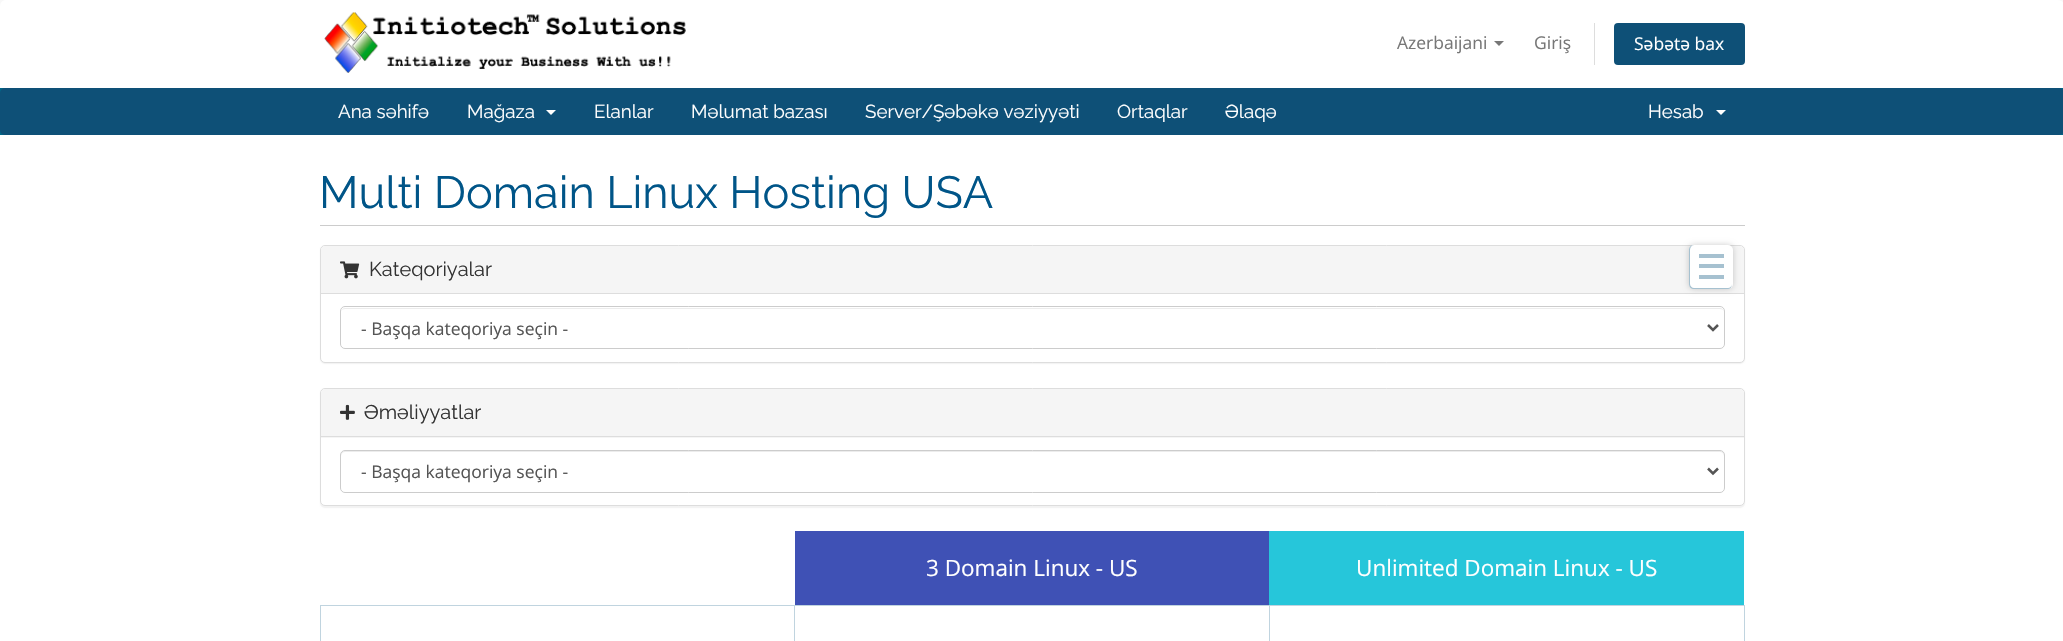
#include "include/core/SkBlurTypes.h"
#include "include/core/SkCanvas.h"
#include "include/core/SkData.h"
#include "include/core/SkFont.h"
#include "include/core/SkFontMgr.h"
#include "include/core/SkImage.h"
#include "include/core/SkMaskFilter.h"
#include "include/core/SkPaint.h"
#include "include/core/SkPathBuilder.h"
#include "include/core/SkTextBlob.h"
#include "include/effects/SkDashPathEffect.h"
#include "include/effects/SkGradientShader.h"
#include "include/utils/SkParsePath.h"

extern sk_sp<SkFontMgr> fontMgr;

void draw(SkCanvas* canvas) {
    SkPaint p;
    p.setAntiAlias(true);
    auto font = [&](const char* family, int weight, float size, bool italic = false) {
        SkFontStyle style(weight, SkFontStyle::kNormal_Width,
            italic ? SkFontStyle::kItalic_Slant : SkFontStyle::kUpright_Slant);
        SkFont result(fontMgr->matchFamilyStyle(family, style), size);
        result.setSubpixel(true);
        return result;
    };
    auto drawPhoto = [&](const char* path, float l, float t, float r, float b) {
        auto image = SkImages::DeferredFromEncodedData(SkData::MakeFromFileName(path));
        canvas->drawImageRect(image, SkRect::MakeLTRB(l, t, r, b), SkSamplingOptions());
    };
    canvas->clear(0xFFF8F8F8);
    p.setColor(0xFFFFFFFF);
    canvas->drawPath(SkPathBuilder().moveTo(6, 0).lineTo(2058, 0).cubicTo(2061.5f, 0, 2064, 2.5f, 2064, 6).lineTo(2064, 88).lineTo(0, 88).lineTo(0, 6).cubicTo(0, 2.5f, 2.5f, 0, 6, 0).close().detach(), p);
    drawPhoto("media/1.png", 324, 12, 686, 73);
    auto font1 = font("Open Sans", 400, 17.5f);
    p.setColor(0xFF777777);
    canvas->drawString("Azerbaijani", 1397, 49, font1, p);
    canvas->drawPath(SkPathBuilder().moveTo(1494, 41).lineTo(1504, 41).lineTo(1499, 46).close().detach(), p);
    canvas->drawString("Giriş", 1534, 49, font1, p);
    p.setColor(0xFFDDDDDD);
    canvas->drawRect(SkRect::MakeLTRB(1594, 23, 1595, 65), p);
    p.setColor(0xFF0E5077);
    canvas->drawRoundRect(SkRect::MakeLTRB(1614, 23, 1745, 65), 4, 4, p);
    p.setColor(0xFFFFFFFF);
    canvas->drawString("Səbətə bax", 1634, 50, font1, p);
    p.setColor(0xFF006687);
    canvas->drawRect(SkRect::MakeLTRB(0, 88, 2063, 135), p);
    p.setColor(0xFF0E5077);
    canvas->drawRoundRect(SkRect::MakeLTRB(0, 88, 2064, 135), 5, 5, p);
    auto font2 = font("Raleway", 400, 18.75f);
    p.setColor(0xFFFFFFFF);
    canvas->drawString("Ana səhifə", 338, 118, font2, p);
    canvas->drawString("Mağaza", 467, 118, font2, p);
    canvas->drawPath(SkPathBuilder().moveTo(546, 110).lineTo(556, 110).lineTo(551, 115).close().detach(), p);
    {
        const struct { const char* s; float x, y; } items[] = {
            {"Elanlar", 594, 118},
            {"Məlumat bazası", 691, 118},
            {"Server/Şəbəkə vəziyyəti", 865, 118},
            {"Ortaqlar", 1117, 118},
            {"Əlaqə", 1225, 118},
            {"Hesab", 1648, 118},
        };
        for (auto [s, x, y] : items) {
            canvas->drawString(s, x, y, font2, p);
        }
    }
    canvas->drawPath(SkPathBuilder().moveTo(1716, 110).lineTo(1726, 110).lineTo(1721, 115).close().detach(), p);
    canvas->drawRect(SkRect::MakeLTRB(0, 135, 2063, 641), p);
    p.setColor(0xFFCCCCCC);
    canvas->drawRect(SkRect::MakeLTRB(320, 225, 1745, 226), p);
    auto font3 = font("Raleway", 400, 45);
    p.setColor(0xFF005588);
    canvas->drawString("Multi Domain Linux Hosting USA", 319, 208, font3, p);
    p.setColor(0x0D000000);
    p.setMaskFilter(SkMaskFilter::MakeBlur(kNormal_SkBlurStyle, 0.5f));
    canvas->drawRoundRect(SkRect::MakeLTRB(320, 246, 1745, 364), 5, 5, p);
    p.setMaskFilter(nullptr);
    p.setColor(0xFFFFFFFF);
    canvas->drawRoundRect(SkRect::MakeLTRB(320.5f, 245.5f, 1744.5f, 362.5f), 4.5f, 4.5f, p);
    p.setStyle(SkPaint::kStroke_Style);
    p.setStrokeWidth(1);
    p.setColor(0xFFDDDDDD);
    canvas->drawRoundRect(SkRect::MakeLTRB(320.5f, 245.5f, 1744.5f, 362.5f), 4.5f, 4.5f, p);
    p.setStyle(SkPaint::kFill_Style);
    p.setColor(0xFFF5F5F5);
    canvas->drawPath(SkPathBuilder().moveTo(325, 246).lineTo(1740, 246).cubicTo(1742, 246, 1744, 248, 1744, 250).lineTo(1744, 294).lineTo(321, 294).lineTo(321, 250).cubicTo(321, 248, 323, 246, 325, 246).close().detach(), p);
    p.setColor(0xFFDDDDDD);
    canvas->drawRect(SkRect::MakeLTRB(321, 293, 1744, 294), p);
    drawPhoto("media/2.png", 340, 261, 360, 279);
    auto font4 = font("Raleway", 400, 20);
    p.setColor(0xFF333333);
    canvas->drawString("Kateqoriyalar", 369, 276, font4, p);
    p.setColor(0xFFECECEC);
    canvas->drawPath(SkPathBuilder().moveTo(345, 309).lineTo(1720, 309).cubicTo(1722, 309, 1724, 310, 1724, 312).cubicTo(1724, 310, 1722, 308, 1720, 308).lineTo(345, 308).cubicTo(343, 308, 341, 310, 341, 312).cubicTo(341, 310, 343, 309, 345, 309).close().detach(), p);
    p.setStyle(SkPaint::kStroke_Style);
    p.setColor(0xFFCCCCCC);
    canvas->drawRoundRect(SkRect::MakeLTRB(340.5f, 306.5f, 1724.5f, 348.5f), 4.5f, 4.5f, p);
    p.setStrokeWidth(2.5f);
    p.setColor(0xFF555555);
    canvas->drawPath(SkPathBuilder().moveTo(1708, 325).lineTo(1713, 330).lineTo(1718, 325).detach(), p);
    p.setStyle(SkPaint::kFill_Style);
    canvas->drawString("- Başqa kateqoriya seçin -", 361, 335, font1, p);
    p.setColor(0x0D000000);
    p.setMaskFilter(SkMaskFilter::MakeBlur(kNormal_SkBlurStyle, 0.5f));
    canvas->drawRoundRect(SkRect::MakeLTRB(320, 389, 1745, 508), 5, 5, p);
    p.setMaskFilter(nullptr);
    p.setColor(0xFFFFFFFF);
    canvas->drawRoundRect(SkRect::MakeLTRB(320.5f, 388.5f, 1744.5f, 505.5f), 4.5f, 4.5f, p);
    p.setStyle(SkPaint::kStroke_Style);
    p.setStrokeWidth(1);
    p.setColor(0xFFDDDDDD);
    canvas->drawRoundRect(SkRect::MakeLTRB(320.5f, 388.5f, 1744.5f, 505.5f), 4.5f, 4.5f, p);
    p.setStyle(SkPaint::kFill_Style);
    p.setColor(0xFFF5F5F5);
    canvas->drawPath(SkPathBuilder().moveTo(325, 389).lineTo(1740, 389).cubicTo(1742, 389, 1744, 391, 1744, 393).lineTo(1744, 438).lineTo(321, 438).lineTo(321, 393).cubicTo(321, 391, 323, 389, 325, 389).close().detach(), p);
    p.setColor(0xFFDDDDDD);
    canvas->drawRect(SkRect::MakeLTRB(321, 436, 1744, 437), p);
    drawPhoto("media/3.png", 340, 404, 355, 420);
    p.setColor(0xFF333333);
    canvas->drawString("Əməliyyatlar", 364, 419, font4, p);
    p.setColor(0xFFECECEC);
    canvas->drawPath(SkPathBuilder().moveTo(345, 452).lineTo(1720, 452).cubicTo(1722, 452, 1724, 454, 1724, 456).lineTo(1724, 455).cubicTo(1724, 453, 1722, 451, 1720, 451).lineTo(345, 451).cubicTo(343, 451, 341, 453, 341, 455).lineTo(341, 456).cubicTo(341, 454, 343, 452, 345, 452).close().detach(), p);
    p.setStyle(SkPaint::kStroke_Style);
    p.setColor(0xFFCCCCCC);
    canvas->drawRoundRect(SkRect::MakeLTRB(340.5f, 450.5f, 1724.5f, 492.5f), 4.5f, 4.5f, p);
    p.setStrokeWidth(2.5f);
    p.setColor(0xFF555555);
    canvas->drawPath(SkPathBuilder().moveTo(1708, 468.5f).lineTo(1713, 473.5f).lineTo(1718, 468.5f).detach(), p);
    p.setStyle(SkPaint::kFill_Style);
    canvas->drawString("- Başqa kateqoriya seçin -", 361, 478, font1, p);
    p.setColor(0x33000000);
    p.setMaskFilter(SkMaskFilter::MakeBlur(kNormal_SkBlurStyle, 3));
    canvas->drawRoundRect(SkRect::MakeLTRB(1689, 245, 1733, 289), 5, 5, p);
    p.setMaskFilter(nullptr);
    p.setColor(0xFFFFFFFF);
    canvas->drawRoundRect(SkRect::MakeLTRB(1689, 245, 1733, 289), 5, 5, p);
    p.setColor(0xFFA6C1D0);
    canvas->drawPath(SkPathBuilder(SkPathFillType::kEvenOdd).moveTo(1694, 245).lineTo(1728, 245).cubicTo(1730, 245, 1732, 247, 1732, 250).lineTo(1732, 284).cubicTo(1732, 287, 1730, 289, 1728, 289).lineTo(1694, 289).cubicTo(1691, 289, 1689, 287, 1689, 284).lineTo(1689, 250).cubicTo(1689, 247, 1691, 245, 1694, 245).close().moveTo(1694, 245).lineTo(1728, 245).cubicTo(1730, 245, 1732, 247, 1732, 250).lineTo(1732, 284).cubicTo(1732, 286, 1730, 288, 1728, 288).lineTo(1694, 288).cubicTo(1692, 288, 1690, 286, 1690, 284).lineTo(1690, 250).cubicTo(1690, 247, 1692, 245, 1694, 245).close().detach(), p);
    {
        const struct { float l, t, r, b; SkColor color; } items[] = {
            {1699, 254, 1724, 258, 0xFFA6C1D0},
            {1699, 264, 1724, 268, 0xFFA6C1D0},
            {1699, 275, 1724, 279, 0xFFA6C1D0},
            {795, 531, 1269, 605, 0xFF3F51B5},
        };
        for (auto [l, t, r, b, color] : items) {
            p.setColor(color);
            canvas->drawRect(SkRect::MakeLTRB(l, t, r, b), p);
        }
    }
    auto font5 = font("Open Sans", 400, 22.5f);
    p.setColor(0xFFFFFFFF);
    canvas->drawString("3 Domain Linux - US", 926, 576, font5, p);
    p.setColor(0xFF26C6DA);
    canvas->drawRect(SkRect::MakeLTRB(1269, 531, 1744, 605), p);
    p.setColor(0xFFFFFFFF);
    canvas->drawString("Unlimited Domain Linux - US", 1356, 576, font5, p);
    {
        const struct { float l, t, r, b; SkColor color; } items[] = {
            {1269, 605, 1745, 606, 0xFFC0D4DF},
            {1269, 605, 1270, 641, 0xFFC0D4DF},
            {794, 605, 1270, 606, 0xFFC0D4DF},
            {794, 605, 795, 641, 0xFFC0D4DF},
            {320, 605, 795, 606, 0xFFC0D4DF},
            {320, 605, 321, 641, 0xFFC0D4DF},
            {1744, 605, 1745, 641, 0xFFC0D4DF},
        };
        for (auto [l, t, r, b, color] : items) {
            p.setColor(color);
            canvas->drawRect(SkRect::MakeLTRB(l, t, r, b), p);
        }
    }
}
